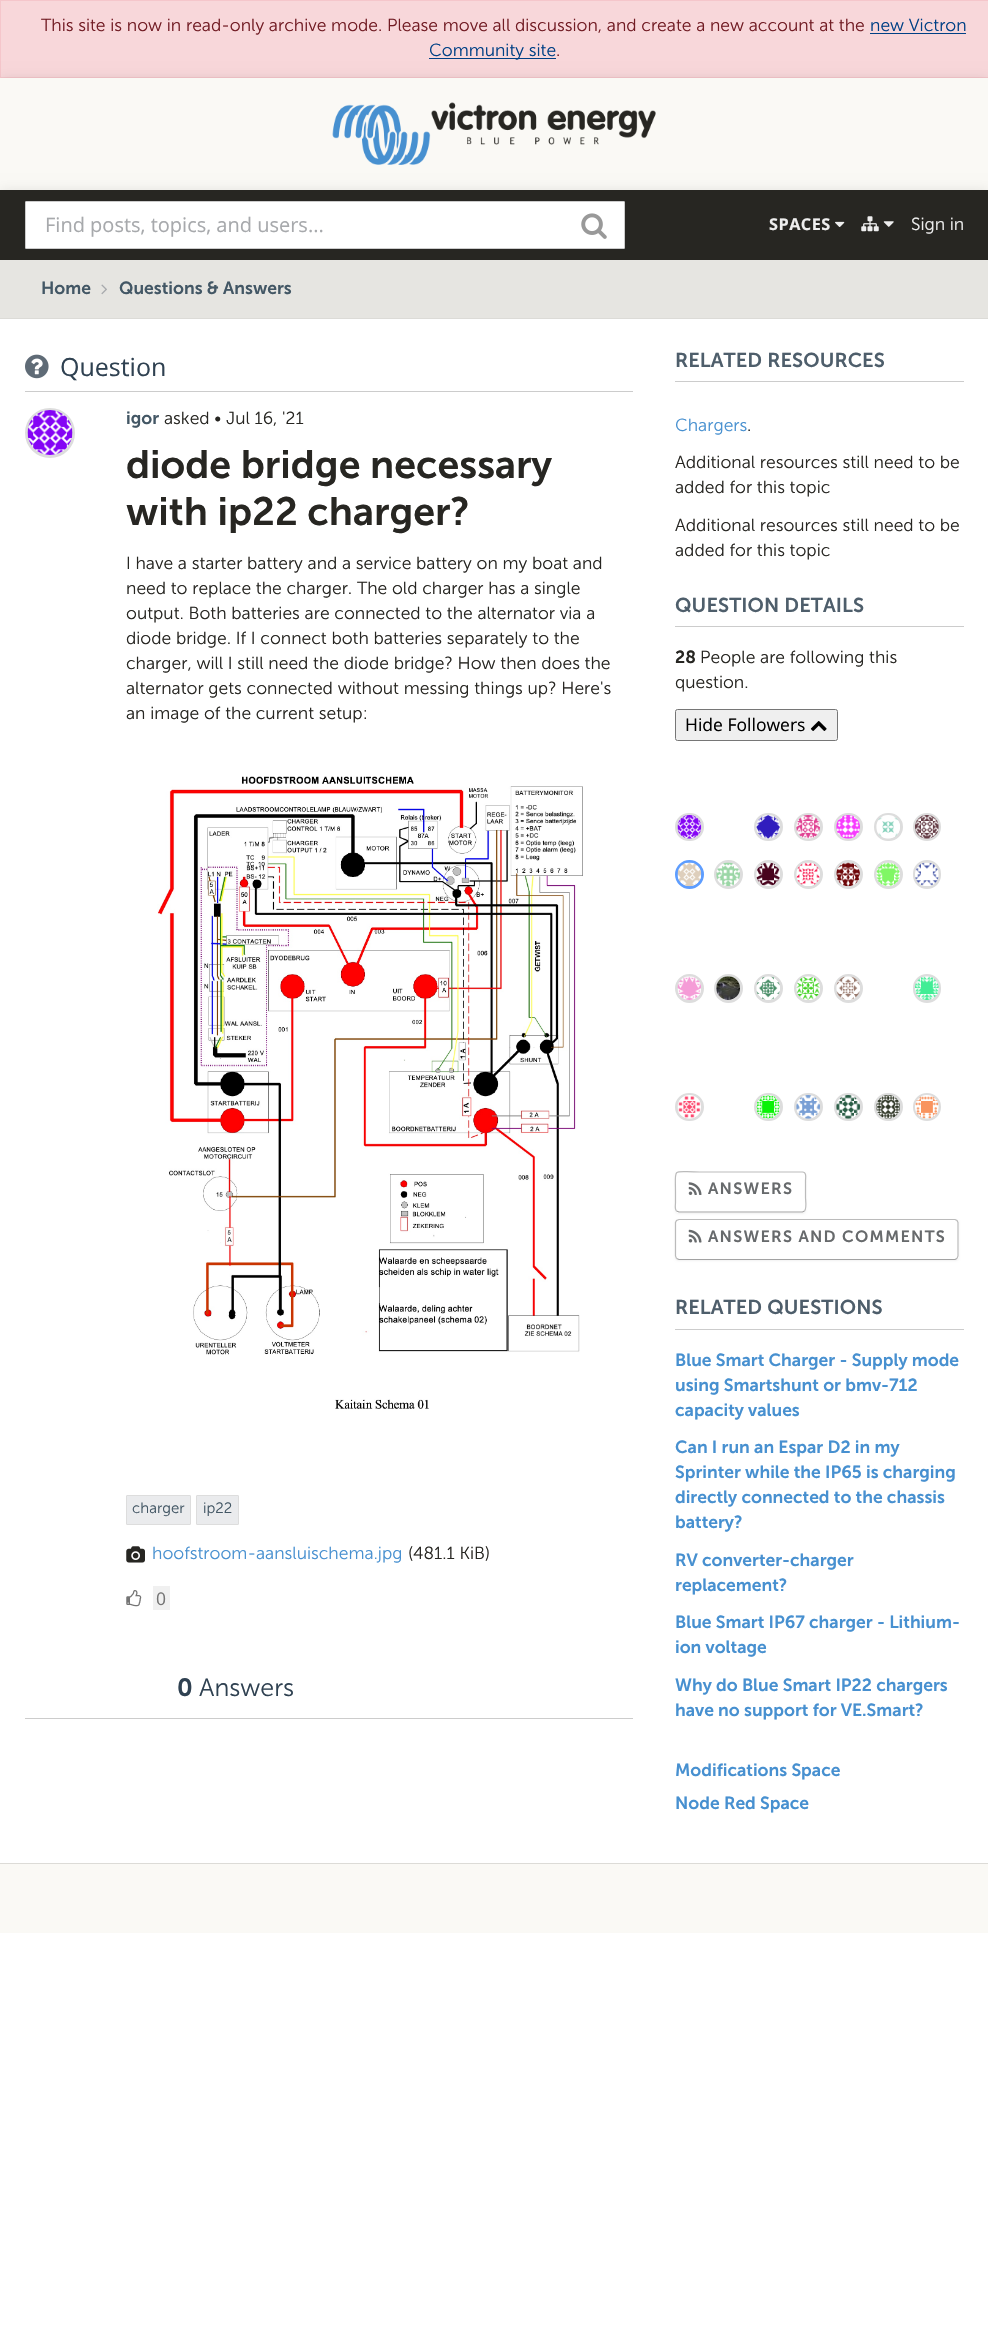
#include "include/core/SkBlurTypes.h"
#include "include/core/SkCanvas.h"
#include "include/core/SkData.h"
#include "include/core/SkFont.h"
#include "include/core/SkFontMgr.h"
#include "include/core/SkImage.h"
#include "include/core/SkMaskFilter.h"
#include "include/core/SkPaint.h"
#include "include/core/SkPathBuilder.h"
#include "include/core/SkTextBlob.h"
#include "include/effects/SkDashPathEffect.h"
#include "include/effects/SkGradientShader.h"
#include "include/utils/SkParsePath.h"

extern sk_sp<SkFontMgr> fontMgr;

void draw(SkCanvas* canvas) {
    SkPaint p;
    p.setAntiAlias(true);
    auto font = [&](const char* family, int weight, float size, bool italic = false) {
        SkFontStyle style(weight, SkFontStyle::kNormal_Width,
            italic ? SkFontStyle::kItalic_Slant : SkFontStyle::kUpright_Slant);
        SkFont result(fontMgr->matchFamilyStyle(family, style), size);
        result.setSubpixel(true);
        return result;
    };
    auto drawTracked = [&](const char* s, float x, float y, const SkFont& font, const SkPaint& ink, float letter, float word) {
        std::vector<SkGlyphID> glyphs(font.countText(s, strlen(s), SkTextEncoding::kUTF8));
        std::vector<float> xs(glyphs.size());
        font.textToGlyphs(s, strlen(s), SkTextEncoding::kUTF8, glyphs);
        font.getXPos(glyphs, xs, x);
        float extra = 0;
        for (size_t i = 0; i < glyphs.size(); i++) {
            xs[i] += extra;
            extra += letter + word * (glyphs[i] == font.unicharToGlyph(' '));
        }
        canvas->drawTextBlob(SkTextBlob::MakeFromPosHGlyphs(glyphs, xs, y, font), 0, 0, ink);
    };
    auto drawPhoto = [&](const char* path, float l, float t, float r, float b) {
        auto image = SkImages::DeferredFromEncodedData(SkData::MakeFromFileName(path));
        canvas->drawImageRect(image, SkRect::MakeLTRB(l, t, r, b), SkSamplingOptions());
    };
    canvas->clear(0xFFFFFFFF);
    p.setColor(0xFFF8D7DA);
    canvas->drawRect(SkRect::MakeLTRB(0.5f, 0.5f, 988.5f, 77.5f), p);
    p.setStyle(SkPaint::kStroke_Style);
    p.setStrokeWidth(1);
    p.setColor(0xFFF5C6CB);
    canvas->drawRect(SkRect::MakeLTRB(0.5f, 0.5f, 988.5f, 77.5f), p);
    auto font1 = font("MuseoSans", 400, 17.5f);
    p.setStyle(SkPaint::kFill_Style);
    p.setColor(0xFF721C24);
    canvas->drawString("This site is now in read-only archive mode. Please move all discussion, and create a new account at the", 41, 31, font1, p);
    p.setColor(0xFF004085);
    canvas->drawString("new Victron", 870, 31, font1, p);
    canvas->drawRect(SkRect::MakeLTRB(870, 33, 966, 34), p);
    canvas->drawRect(SkRect::MakeLTRB(429, 58, 556, 59), p);
    canvas->drawString("Community site", 429, 56, font1, p);
    p.setColor(0xFF721C24);
    canvas->drawString(".", 556, 56, font1, p);
    p.setColor(0x1A000000);
    p.setMaskFilter(SkMaskFilter::MakeBlur(kNormal_SkBlurStyle, 6));
    canvas->drawRect(SkRect::MakeLTRB(0, 79, 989, 191), p);
    p.setMaskFilter(nullptr);
    p.setColor(0xFFFAF9F5);
    canvas->drawRect(SkRect::MakeLTRB(0, 78, 988, 190), p);
    drawPhoto("media/1.png", 332, 102, 656, 165);
    p.setColor(0x1A000000);
    p.setMaskFilter(SkMaskFilter::MakeBlur(kNormal_SkBlurStyle, 6));
    canvas->drawRect(SkRect::MakeLTRB(0, 191, 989, 261), p);
    p.setMaskFilter(nullptr);
    p.setColor(0xFF272622);
    canvas->drawRect(SkRect::MakeLTRB(0, 190, 988, 260), p);
    p.setColor(0xFFFFFFFF);
    canvas->drawRoundRect(SkRect::MakeLTRB(25.5f, 201.5f, 624.5f, 248.5f), 0.5f, 0.5f, p);
    p.setStyle(SkPaint::kStroke_Style);
    p.setColor(0xFFCCCCCC);
    canvas->drawRoundRect(SkRect::MakeLTRB(25.5f, 201.5f, 624.5f, 248.5f), 0.5f, 0.5f, p);
    auto font2 = font("Open Sans", 400, 20);
    p.setStyle(SkPaint::kFill_Style);
    p.setColor(0xFFA7A9AC);
    canvas->drawString("Find posts, topics, and users...", 45, 232, font2, p);
    drawPhoto("media/2.png", 581, 213, 607, 239);
    auto font3 = font("Open Sans", 700, 16.25f);
    p.setColor(0xFFEEEEEE);
    drawTracked("SPACES", 769, 230, font3, p, 0.5f, 0);
    drawPhoto("media/3.png", 835, 221, 845, 227);
    drawPhoto("media/4.png", 861, 216, 879, 232);
    drawPhoto("media/5.png", 883, 221, 894, 227);
    canvas->drawString("Sign in", 911, 230, font1, p);
    p.setColor(0xFFE6E5E1);
    canvas->drawRect(SkRect::MakeLTRB(0, 260, 988, 318), p);
    p.setColor(0xFFDCDBD7);
    canvas->drawRect(SkRect::MakeLTRB(0, 318, 988, 319), p);
    auto font4 = font("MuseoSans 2", 400, 17.5f);
    p.setColor(0xFF435765);
    canvas->drawString("Home", 41, 294, font4, p);
    drawPhoto("media/6.png", 101, 284, 107, 295);
    canvas->drawString("Questions & Answers", 119, 294, font4, p);
    p.setColor(0xFFCCCCCC);
    canvas->drawRect(SkRect::MakeLTRB(25, 391, 633, 392), p);
    drawPhoto("media/7.png", 25, 354, 49, 379);
    auto font5 = font("Open Sans", 400, 25);
    p.setColor(0xFF2F4151);
    canvas->drawString("Question", 60, 376, font5, p);
    p.setStyle(SkPaint::kStroke_Style);
    p.setStrokeWidth(3);
    p.setColor(0xFFDDDDDD);
    canvas->drawCircle(50, 433, 23.5f, p);
    drawPhoto("media/8.png", 27, 410, 73, 455);
    p.setStyle(SkPaint::kFill_Style);
    p.setColor(0xFF435765);
    canvas->drawString("igor", 126, 424, font4, p);
    p.setColor(0xFF272622);
    canvas->drawString("asked • Jul 16, '21", 164, 424, font1, p);
    auto font6 = font("MuseoSans 2", 400, 39.4f);
    canvas->drawString("diode bridge necessary", 126, 478, font6, p);
    canvas->drawString("with ip22 charger?", 126, 525, font6, p);
    {
        const struct { const char* s; float x, y; } items[] = {
            {"I have a starter battery and a service battery on my boat and", 126, 569},
            {"need to replace the charger. The old charger has a single", 126, 594},
            {"output. Both batteries are connected to the alternator via a", 126, 619},
            {"diode bridge. If I connect both batteries separately to the", 126, 644},
            {"charger, will I still need the diode bridge? How then does the", 126, 669},
            {"alternator gets connected without messing things up? Here's", 126, 694},
            {"an image of the current setup:", 126, 719},
        };
        for (auto [s, x, y] : items) {
            canvas->drawString(s, x, y, font1, p);
        }
    }
    drawPhoto("media/9.png", 157, 776, 583, 1409);
    p.setColor(0xFFEAEBED);
    canvas->drawRoundRect(SkRect::MakeLTRB(126.5f, 1495.5f, 190.5f, 1524.5f), 0.5f, 0.5f, p);
    p.setStyle(SkPaint::kStroke_Style);
    p.setStrokeWidth(1);
    p.setColor(0xFFDDDDDD);
    canvas->drawRoundRect(SkRect::MakeLTRB(126.5f, 1495.5f, 190.5f, 1524.5f), 0.5f, 0.5f, p);
    auto font7 = font("MuseoSans", 400, 15);
    p.setStyle(SkPaint::kFill_Style);
    p.setColor(0xFF435765);
    canvas->drawString("charger", 132, 1513, font7, p);
    p.setColor(0xFFEAEBED);
    canvas->drawRoundRect(SkRect::MakeLTRB(196.5f, 1495.5f, 238.5f, 1524.5f), 0.5f, 0.5f, p);
    p.setStyle(SkPaint::kStroke_Style);
    p.setColor(0xFFDDDDDD);
    canvas->drawRoundRect(SkRect::MakeLTRB(196.5f, 1495.5f, 238.5f, 1524.5f), 0.5f, 0.5f, p);
    p.setStyle(SkPaint::kFill_Style);
    p.setColor(0xFF435765);
    canvas->drawString("ip22", 203, 1513, font7, p);
    drawPhoto("media/10.png", 126, 1546, 145, 1563);
    p.setColor(0xFF4790D0);
    canvas->drawString("hoofstroom-aansluischema.jpg", 152, 1559, font1, p);
    p.setColor(0xFF272622);
    canvas->drawString("(481.1 KiB)", 408, 1559, font1, p);
    drawPhoto("media/11.png", 126, 1590, 142, 1607);
    p.setColor(0xFFF0F0F0);
    canvas->drawRect(SkRect::MakeLTRB(153, 1586, 170, 1610), p);
    auto font8 = font("Open Sans", 400, 17.5f);
    p.setColor(0xFF747474);
    canvas->drawString("0", 156, 1605, font8, p);
    p.setColor(0xFFCCCCCC);
    canvas->drawRect(SkRect::MakeLTRB(25, 1718, 633, 1719), p);
    auto font9 = font("MuseoSans 2", 400, 25);
    p.setColor(0xFF2F4151);
    canvas->drawString("0", 177, 1696, font9, p);
    auto font10 = font("MuseoSans", 400, 25);
    canvas->drawString("Answers", 199, 1696, font10, p);
    p.setColor(0xFFCCCCCC);
    canvas->drawRect(SkRect::MakeLTRB(675, 381, 964, 382), p);
    auto font11 = font("MuseoSans 2", 400, 20);
    p.setColor(0xFF4E5E6B);
    drawTracked("RELATED RESOURCES", 675, 367, font11, p, 0.1f, 0);
    p.setColor(0xFF4790D0);
    canvas->drawString("Chargers", 675, 431, font1, p);
    p.setColor(0xFF272622);
    {
        const struct { const char* s; float x, y; } items[] = {
            {".", 747, 431},
            {"Additional resources still need to be", 675, 468},
            {"added for this topic", 675, 493},
            {"Additional resources still need to be", 675, 531},
            {"added for this topic", 675, 556},
        };
        for (auto [s, x, y] : items) {
            canvas->drawString(s, x, y, font1, p);
        }
    }
    p.setColor(0xFFCCCCCC);
    canvas->drawRect(SkRect::MakeLTRB(675, 626, 964, 627), p);
    p.setColor(0xFF4E5E6B);
    drawTracked("QUESTION DETAILS", 675, 612, font11, p, 0.1f, 0);
    p.setColor(0xFF272622);
    canvas->drawString("28", 675, 663, font4, p);
    canvas->drawString("People are following this", 700, 663, font1, p);
    canvas->drawString("question.", 675, 688, font1, p);
    p.setColor(0xFFEFEFEF);
    canvas->drawRoundRect(SkRect::MakeLTRB(675.5f, 709.5f, 837.5f, 740.5f), 2, 2, p);
    p.setStyle(SkPaint::kStroke_Style);
    p.setColor(0xFF767676);
    canvas->drawRoundRect(SkRect::MakeLTRB(675.5f, 709.5f, 837.5f, 740.5f), 2, 2, p);
    p.setStyle(SkPaint::kFill_Style);
    p.setColor(0xFF000000);
    canvas->drawString("Hide Followers", 685, 731, font8, p);
    drawPhoto("media/12.png", 810, 721, 827, 731);
    p.setStyle(SkPaint::kStroke_Style);
    p.setStrokeWidth(3);
    p.setColor(0xFFDDDDDD);
    canvas->drawRoundRect(SkRect::MakeLTRB(676.5f, 814.5f, 702.5f, 839.5f), 12.5f, 12.5f, p);
    drawPhoto("media/13.png", 677, 815, 702, 839);
    canvas->drawRoundRect(SkRect::MakeLTRB(755.5f, 814.5f, 781.5f, 839.5f), 12.5f, 12.5f, p);
    drawPhoto("media/14.png", 756, 815, 780, 839);
    canvas->drawRoundRect(SkRect::MakeLTRB(795.5f, 814.5f, 821.5f, 839.5f), 12.5f, 12.5f, p);
    drawPhoto("media/15.png", 796, 815, 820, 839);
    canvas->drawRoundRect(SkRect::MakeLTRB(835.5f, 814.5f, 861.5f, 839.5f), 12.5f, 12.5f, p);
    drawPhoto("media/16.png", 836, 815, 860, 839);
    canvas->drawRoundRect(SkRect::MakeLTRB(875.5f, 814.5f, 901.5f, 839.5f), 12.5f, 12.5f, p);
    drawPhoto("media/17.png", 876, 815, 900, 839);
    canvas->drawCircle(927, 827, 12.5f, p);
    drawPhoto("media/18.png", 915, 815, 939, 839);
    p.setColor(0xFF5D9DFF);
    canvas->drawCircle(689.5f, 874.5f, 13, p);
    drawPhoto("media/19.png", 677, 862, 702, 887);
    p.setColor(0xFFDDDDDD);
    canvas->drawCircle(728.5f, 874.5f, 13, p);
    drawPhoto("media/20.png", 716, 862, 740, 886);
    canvas->drawCircle(768.5f, 874.5f, 13, p);
    drawPhoto("media/21.png", 756, 862, 780, 886);
    canvas->drawCircle(808.5f, 874.5f, 13, p);
    drawPhoto("media/22.png", 796, 862, 820, 886);
    canvas->drawCircle(848.5f, 874.5f, 13, p);
    drawPhoto("media/23.png", 836, 862, 860, 887);
    canvas->drawCircle(888.5f, 874.5f, 13, p);
    drawPhoto("media/24.png", 876, 862, 900, 886);
    canvas->drawRoundRect(SkRect::MakeLTRB(914.5f, 861.5f, 939.5f, 887.5f), 12.5f, 12.5f, p);
    drawPhoto("media/25.png", 915, 862, 939, 886);
    canvas->drawCircle(689.5f, 988.5f, 13, p);
    drawPhoto("media/26.png", 677, 976, 701, 1000);
    canvas->drawCircle(728.5f, 988.5f, 13, p);
    drawPhoto("media/27.png", 716, 976, 740, 1000);
    canvas->drawCircle(768.5f, 988.5f, 13, p);
    drawPhoto("media/28.png", 756, 976, 780, 1000);
    canvas->drawCircle(808.5f, 988.5f, 13, p);
    drawPhoto("media/29.png", 796, 976, 820, 1000);
    canvas->drawCircle(848.5f, 988.5f, 13, p);
    drawPhoto("media/30.png", 836, 976, 860, 1000);
    canvas->drawRoundRect(SkRect::MakeLTRB(914.5f, 975.5f, 939.5f, 1001.5f), 12.5f, 12.5f, p);
    drawPhoto("media/31.png", 915, 976, 939, 1000);
    canvas->drawRoundRect(SkRect::MakeLTRB(676.5f, 1094.5f, 702.5f, 1119.5f), 12.5f, 12.5f, p);
    drawPhoto("media/32.png", 677, 1095, 701, 1119);
    canvas->drawRoundRect(SkRect::MakeLTRB(755.5f, 1094.5f, 781.5f, 1119.5f), 12.5f, 12.5f, p);
    drawPhoto("media/33.png", 756, 1095, 780, 1119);
    canvas->drawRoundRect(SkRect::MakeLTRB(795.5f, 1094.5f, 821.5f, 1119.5f), 12.5f, 12.5f, p);
    drawPhoto("media/34.png", 796, 1095, 820, 1119);
    canvas->drawRoundRect(SkRect::MakeLTRB(835.5f, 1094.5f, 861.5f, 1119.5f), 12.5f, 12.5f, p);
    drawPhoto("media/35.png", 836, 1095, 860, 1119);
    canvas->drawRoundRect(SkRect::MakeLTRB(875.5f, 1094.5f, 901.5f, 1119.5f), 12.5f, 12.5f, p);
    drawPhoto("media/36.png", 876, 1095, 900, 1119);
    canvas->drawCircle(927, 1107, 12.5f, p);
    drawPhoto("media/37.png", 915, 1095, 939, 1119);
    p.setStyle(SkPaint::kFill_Style);
    p.setColor(0x0D000000);
    p.setMaskFilter(SkMaskFilter::MakeBlur(kNormal_SkBlurStyle, 1));
    canvas->drawRoundRect(SkRect::MakeLTRB(675, 1173, 806, 1214), 4, 4, p);
    p.setMaskFilter(nullptr);
    p.setColor(0xFFFFFFFF);
    canvas->drawRoundRect(SkRect::MakeLTRB(675, 1171, 806, 1213), 4, 4, p);
    p.setStyle(SkPaint::kStroke_Style);
    p.setStrokeWidth(1.2f);
    p.setColor(0xFFA2A2A2);
    canvas->drawPath(SkPathBuilder().moveTo(804.5f, 1211).lineTo(802.5f, 1212).lineTo(679, 1212).lineTo(676.5f, 1211).detach(), p);
    p.setColor(0xFFBBBBBB);
    canvas->drawPath(SkPathBuilder().moveTo(676.5f, 1211).cubicTo(674.5f, 1209, 675.5f, 1204.5f, 675.5f, 1203).lineTo(675.5f, 1192).cubicTo(675.5f, 1166.5f, 671.5f, 1172, 699.5f, 1172).lineTo(802.5f, 1172).cubicTo(807, 1172, 805.5f, 1178.5f, 805.5f, 1180.5f).lineTo(805.5f, 1197.5f).cubicTo(805.5f, 1200, 807, 1208.5f, 804.5f, 1211).detach(), p);
    drawPhoto("media/38.png", 688, 1182, 702, 1195);
    auto font12 = font("MuseoSans 2", 400, 16.25f);
    p.setStyle(SkPaint::kFill_Style);
    p.setColor(0xFF676A6C);
    drawTracked("ANSWERS", 708, 1194, font12, p, 1.25f, 0);
    p.setColor(0x0D000000);
    p.setMaskFilter(SkMaskFilter::MakeBlur(kNormal_SkBlurStyle, 1));
    canvas->drawRoundRect(SkRect::MakeLTRB(675, 1220, 959, 1261), 4, 4, p);
    p.setMaskFilter(nullptr);
    p.setColor(0xFFFFFFFF);
    canvas->drawRoundRect(SkRect::MakeLTRB(675, 1219, 959, 1260), 4, 4, p);
    p.setStyle(SkPaint::kStroke_Style);
    p.setColor(0xFFA2A2A2);
    canvas->drawPath(SkPathBuilder().moveTo(957, 1258.5f).lineTo(955, 1259.5f).lineTo(679, 1259.5f).lineTo(676.5f, 1258.5f).detach(), p);
    p.setColor(0xFFBBBBBB);
    canvas->drawPath(SkPathBuilder().moveTo(676.5f, 1258.5f).lineTo(675.5f, 1256).lineTo(675.5f, 1222.5f).lineTo(676.5f, 1220.5f).lineTo(679, 1219.5f).lineTo(955, 1219.5f).lineTo(957, 1220.5f).lineTo(958, 1222.5f).lineTo(958, 1256).lineTo(957, 1258.5f).detach(), p);
    drawPhoto("media/39.png", 688, 1229, 702, 1243);
    p.setStyle(SkPaint::kFill_Style);
    p.setColor(0xFF676A6C);
    drawTracked("ANSWERS AND COMMENTS", 708, 1242, font12, p, 1.25f, 0);
    p.setColor(0xFFCCCCCC);
    canvas->drawRect(SkRect::MakeLTRB(675, 1329, 964, 1330), p);
    p.setColor(0xFF4E5E6B);
    drawTracked("RELATED QUESTIONS", 675, 1314, font11, p, 0.1f, 0);
    p.setColor(0xFF4790D0);
    {
        const struct { const char* s; float x, y; } items[] = {
            {"Blue Smart Charger - Supply mode", 675, 1366},
            {"using Smartshunt or bmv-712", 675, 1391},
            {"capacity values", 675, 1416},
            {"Can I run an Espar D2 in my", 675, 1453},
            {"Sprinter while the IP65 is charging", 675, 1478},
            {"directly connected to the chassis", 675, 1503},
            {"battery?", 675, 1528},
            {"RV converter-charger", 675, 1566},
            {"replacement?", 675, 1591},
            {"Blue Smart IP67 charger - Lithium-", 675, 1628},
            {"ion voltage", 675, 1653},
            {"Why do Blue Smart IP22 chargers", 675, 1691},
            {"have no support for VE.Smart?", 675, 1716},
            {"Modifications Space", 675, 1776},
            {"Node Red Space", 675, 1809},
        };
        for (auto [s, x, y] : items) {
            canvas->drawString(s, x, y, font4, p);
        }
    }
    p.setColor(0xFFFAF9F5);
    canvas->drawRect(SkRect::MakeLTRB(0, 1864, 988, 1933), p);
    p.setColor(0xFFDCDBD7);
    canvas->drawRect(SkRect::MakeLTRB(0, 1863, 988, 1864), p);
}
